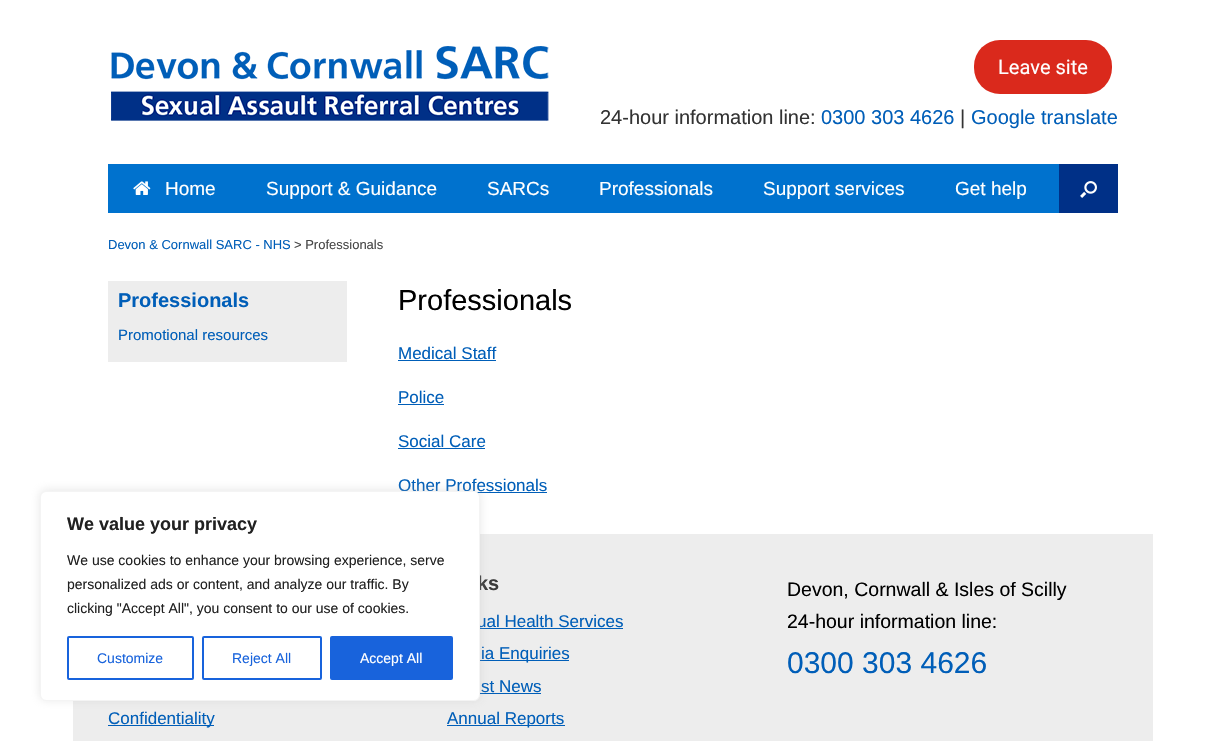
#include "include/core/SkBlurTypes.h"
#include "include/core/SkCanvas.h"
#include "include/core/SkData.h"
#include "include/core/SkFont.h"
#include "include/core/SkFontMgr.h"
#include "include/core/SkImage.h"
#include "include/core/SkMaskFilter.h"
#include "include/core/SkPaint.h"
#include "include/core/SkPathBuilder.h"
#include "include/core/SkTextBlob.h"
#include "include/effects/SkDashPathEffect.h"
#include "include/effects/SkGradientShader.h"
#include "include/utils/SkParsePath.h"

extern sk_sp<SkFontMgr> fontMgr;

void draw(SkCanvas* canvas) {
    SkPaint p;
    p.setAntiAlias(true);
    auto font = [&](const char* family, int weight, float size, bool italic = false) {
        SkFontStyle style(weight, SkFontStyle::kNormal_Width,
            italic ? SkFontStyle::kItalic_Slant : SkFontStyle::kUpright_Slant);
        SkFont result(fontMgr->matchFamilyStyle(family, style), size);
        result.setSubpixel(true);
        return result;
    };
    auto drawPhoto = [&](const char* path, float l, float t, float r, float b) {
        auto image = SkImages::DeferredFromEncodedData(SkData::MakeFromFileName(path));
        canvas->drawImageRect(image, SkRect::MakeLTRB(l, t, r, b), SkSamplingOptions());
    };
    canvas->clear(0xFFFFFFFF);
    drawPhoto("media/1.png", 111, 46, 549, 121);
    p.setColor(0xFFDA291C);
    canvas->drawRoundRect(SkRect::MakeLTRB(974, 40, 1112, 94), 26, 26, p);
    auto font1 = font("Roboto", 400, 20);
    p.setColor(0xFFFFFFFF);
    canvas->drawString("Leave site", 998, 74, font1, p);
    auto font2 = font("Liberation Sans", 400, 20);
    p.setColor(0xFF333333);
    canvas->drawString("24-hour information line:", 600, 124, font2, p);
    p.setColor(0xFF005EB8);
    canvas->drawString("0300 303 4626", 821, 124, font2, p);
    p.setColor(0xFF333333);
    canvas->drawString("|", 960, 124, font2, p);
    p.setColor(0xFF005EB8);
    canvas->drawString("Google translate", 971, 124, font2, p);
    p.setColor(0xFF0072CE);
    canvas->drawRect(SkRect::MakeLTRB(108, 164, 1059, 213), p);
    drawPhoto("media/2.png", 133, 181, 151, 195);
    auto font3 = font("Liberation Sans", 400, 19);
    p.setColor(0xFFFFFFFF);
    {
        const struct { const char* s; float x, y; } items[] = {
            {"Home", 165, 195},
            {"Support & Guidance", 266, 195},
            {"SARCs", 487, 195},
            {"Professionals", 599, 195},
            {"Support services", 763, 195},
            {"Get help", 955, 195},
        };
        for (auto [s, x, y] : items) {
            canvas->drawString(s, x, y, font3, p);
        }
    }
    p.setColor(0xFF003087);
    canvas->drawRect(SkRect::MakeLTRB(1059, 164, 1118, 213), p);
    drawPhoto("media/3.png", 1080, 181, 1097, 198);
    auto font4 = font("Liberation Sans", 400, 13);
    p.setColor(0xFF005EB8);
    canvas->drawString("Devon & Cornwall SARC - NHS", 108, 249, font4, p);
    p.setColor(0xFF474747);
    canvas->drawString("> Professionals", 294, 249, font4, p);
    p.setColor(0xFFEDEDED);
    canvas->drawRect(SkRect::MakeLTRB(108, 281, 347, 362), p);
    auto font5 = font("Liberation Sans", 700, 20);
    p.setColor(0xFF005EB8);
    canvas->drawString("Professionals", 118, 307, font5, p);
    auto font6 = font("Liberation Sans", 400, 15);
    canvas->drawString("Promotional resources", 118, 340, font6, p);
    auto font7 = font("Liberation Sans", 400, 29);
    p.setColor(0xFF000000);
    canvas->drawString("Professionals", 398, 310, font7, p);
    auto font8 = font("Liberation Sans", 400, 17);
    p.setColor(0xFF005EB8);
    canvas->drawString("Medical Staff", 398, 359, font8, p);
    canvas->drawRect(SkRect::MakeLTRB(398, 360, 496, 361), p);
    canvas->drawString("Police", 398, 403, font8, p);
    canvas->drawRect(SkRect::MakeLTRB(398, 404, 444, 405), p);
    canvas->drawString("Social Care", 398, 447, font8, p);
    canvas->drawRect(SkRect::MakeLTRB(398, 448, 485, 449), p);
    canvas->drawString("Other Professionals", 398, 491, font8, p);
    canvas->drawRect(SkRect::MakeLTRB(477, 492, 547, 493), p);
    p.setColor(0xFFEDEDED);
    canvas->drawRect(SkRect::MakeLTRB(73, 534, 1153, 741), p);
    p.setColor(0xFF3B3B3B);
    canvas->drawString("ks", 477, 590, font5, p);
    p.setColor(0xFF005EB8);
    canvas->drawString("ual Health Services", 477, 627, font8, p);
    canvas->drawRect(SkRect::MakeLTRB(480, 628, 623, 629), p);
    canvas->drawRect(SkRect::MakeLTRB(480, 660, 569, 661), p);
    canvas->drawString("ia Enquiries", 481, 659, font8, p);
    canvas->drawString("st News", 481, 692, font8, p);
    canvas->drawRect(SkRect::MakeLTRB(480, 693, 541, 694), p);
    canvas->drawRect(SkRect::MakeLTRB(447, 725, 565, 726), p);
    canvas->drawString("Annual Reports", 447, 724, font8, p);
    auto font9 = font("Liberation Sans", 400, 19.5f);
    p.setColor(0xFF000000);
    canvas->drawString("Devon, Cornwall & Isles of Scilly", 787, 596, font9, p);
    canvas->drawString("24-hour information line:", 787, 628, font9, p);
    auto font10 = font("Liberation Sans", 400, 30);
    p.setColor(0xFF005EB8);
    canvas->drawString("0300 303 4626", 787, 673, font10, p);
    canvas->drawRect(SkRect::MakeLTRB(108, 725, 214, 726), p);
    canvas->drawString("Confidentiality", 108, 724, font8, p);
    p.setColor(0x4DACABAB);
    p.setMaskFilter(SkMaskFilter::MakeBlur(kNormal_SkBlurStyle, 5));
    canvas->drawRoundRect(SkRect::MakeLTRB(40, 490, 480, 700), 6, 6, p);
    p.setMaskFilter(nullptr);
    p.setColor(0xFFFFFFFF);
    canvas->drawRoundRect(SkRect::MakeLTRB(40.5f, 491.5f, 479.5f, 700.5f), 5.5f, 5.5f, p);
    p.setStyle(SkPaint::kStroke_Style);
    p.setStrokeWidth(1);
    p.setColor(0xFFF4F4F4);
    canvas->drawRoundRect(SkRect::MakeLTRB(40.5f, 491.5f, 479.5f, 700.5f), 5.5f, 5.5f, p);
    auto font11 = font("Liberation Sans", 700, 18);
    p.setStyle(SkPaint::kFill_Style);
    p.setColor(0xFF212121);
    canvas->drawString("We value your privacy", 67, 530, font11, p);
    auto font12 = font("Liberation Sans", 400, 14);
    {
        const struct { const char* s; float x, y; } items[] = {
            {"We use cookies to enhance your browsing experience, serve", 67, 565},
            {"personalized ads or content, and analyze our traffic. By", 67, 589},
            {"clicking \"Accept All\", you consent to our use of cookies.", 67, 613},
        };
        for (auto [s, x, y] : items) {
            canvas->drawString(s, x, y, font12, p);
        }
    }
    p.setStyle(SkPaint::kStroke_Style);
    p.setStrokeWidth(2);
    p.setColor(0xFF1863DC);
    canvas->drawRoundRect(SkRect::MakeLTRB(68, 637, 193, 679), 1, 1, p);
    p.setStyle(SkPaint::kFill_Style);
    canvas->drawString("Customize", 97, 663, font12, p);
    p.setStyle(SkPaint::kStroke_Style);
    canvas->drawRoundRect(SkRect::MakeLTRB(203, 637, 321, 679), 1, 1, p);
    p.setStyle(SkPaint::kFill_Style);
    canvas->drawString("Reject All", 232, 663, font12, p);
    canvas->drawRoundRect(SkRect::MakeLTRB(331, 637, 452, 679), 1, 1, p);
    p.setStyle(SkPaint::kStroke_Style);
    canvas->drawRoundRect(SkRect::MakeLTRB(331, 637, 452, 679), 1, 1, p);
    p.setStyle(SkPaint::kFill_Style);
    p.setColor(0xFFFFFFFF);
    canvas->drawString("Accept All", 360, 663, font12, p);
}
